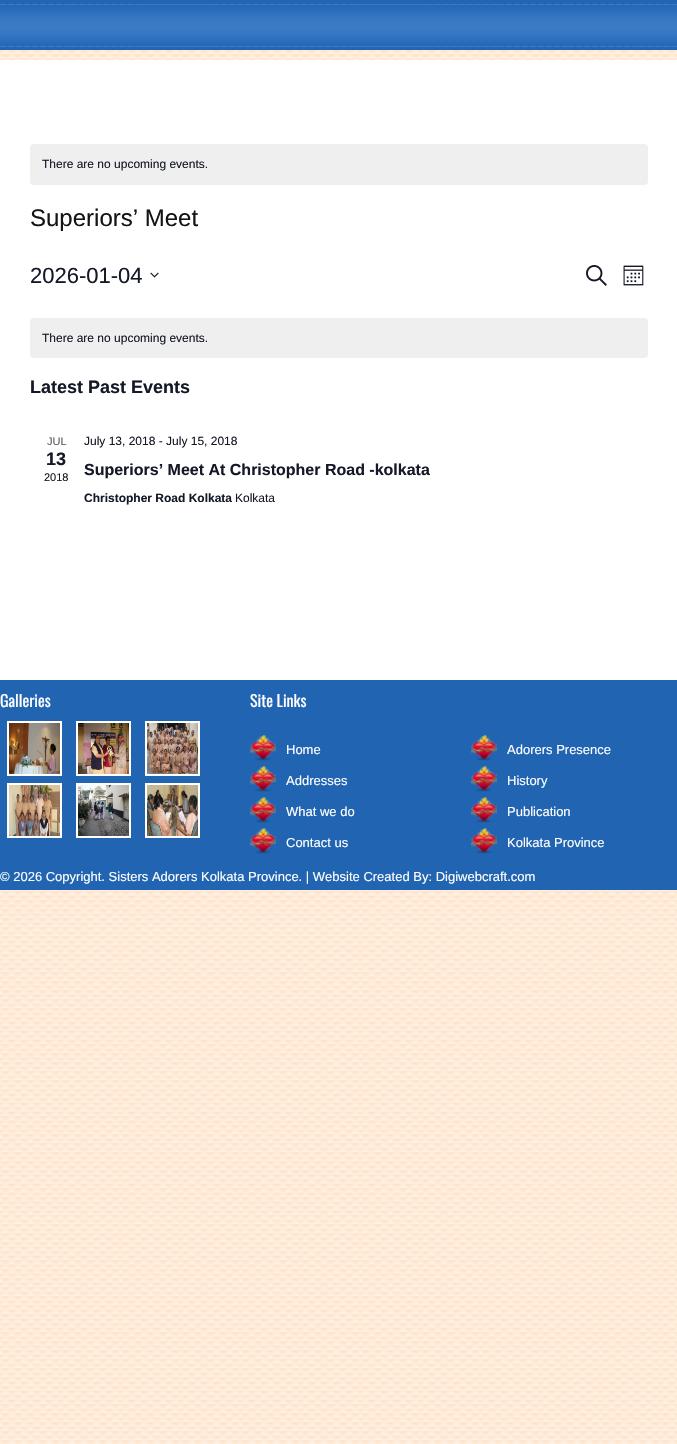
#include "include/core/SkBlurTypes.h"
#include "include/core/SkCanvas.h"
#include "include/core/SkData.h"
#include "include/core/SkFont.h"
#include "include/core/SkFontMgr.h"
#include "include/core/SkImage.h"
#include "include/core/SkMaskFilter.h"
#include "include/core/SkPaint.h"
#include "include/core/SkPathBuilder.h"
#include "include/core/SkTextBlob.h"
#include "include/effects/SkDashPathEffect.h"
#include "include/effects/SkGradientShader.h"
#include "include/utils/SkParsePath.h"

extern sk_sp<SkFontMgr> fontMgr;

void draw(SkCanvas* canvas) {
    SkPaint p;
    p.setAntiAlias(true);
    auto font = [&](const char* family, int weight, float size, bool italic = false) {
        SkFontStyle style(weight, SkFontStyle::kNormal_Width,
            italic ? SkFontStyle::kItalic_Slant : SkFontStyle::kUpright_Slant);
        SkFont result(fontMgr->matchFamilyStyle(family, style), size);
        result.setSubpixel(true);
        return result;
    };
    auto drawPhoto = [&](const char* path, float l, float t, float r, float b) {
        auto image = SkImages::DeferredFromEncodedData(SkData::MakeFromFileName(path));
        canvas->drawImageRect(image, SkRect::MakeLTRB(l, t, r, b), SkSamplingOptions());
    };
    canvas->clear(0xFFFFFFFF);
    drawPhoto("media/1.png", 0, 890, 677, 1444);
    drawPhoto("media/2.png", 0, 50, 677, 60);
    drawPhoto("media/3.png", 0, 0, 677, 50);
    p.setColor(0xFFEFEFF0);
    canvas->drawRoundRect(SkRect::MakeLTRB(30, 144, 648, 185), 4, 4, p);
    auto font1 = font("Liberation Sans", 400, 12);
    p.setColor(0xFF141827);
    canvas->drawString("There are no upcoming events.", 42, 168, font1, p);
    auto font2 = font("Liberation Sans", 400, 24);
    p.setColor(0xFF141412);
    canvas->drawString("Superiors’ Meet", 30, 226, font2, p);
    auto font3 = font("Liberation Sans", 400, 22);
    p.setColor(0xFF141827);
    canvas->drawString("2026-01-04", 30, 283, font3, p);
    drawPhoto("media/4.png", 150, 272, 159, 278);
    drawPhoto("media/5.png", 586, 265, 607, 286);
    drawPhoto("media/6.png", 623, 265, 644, 286);
    p.setColor(0xFFEFEFF0);
    canvas->drawRoundRect(SkRect::MakeLTRB(30, 318, 648, 358), 4, 4, p);
    p.setColor(0xFF141827);
    canvas->drawString("There are no upcoming events.", 42, 342, font1, p);
    auto font4 = font("Liberation Sans", 700, 18);
    canvas->drawString("Latest Past Events", 30, 393, font4, p);
    auto font5 = font("Liberation Sans", 400, 11);
    p.setColor(0xFF5D5D5D);
    canvas->drawString("JUL", 47, 445, font5, p);
    p.setColor(0xFF141827);
    canvas->drawString("13", 46, 465, font4, p);
    canvas->drawString("2018", 44, 481, font5, p);
    canvas->drawString("July 13, 2018 - July 15, 2018", 84, 445, font1, p);
    auto font6 = font("Liberation Sans", 700, 16);
    canvas->drawString("Superiors’ Meet At Christopher Road -kolkata", 84, 475, font6, p);
    auto font7 = font("Liberation Sans", 700, 12);
    canvas->drawString("Christopher Road Kolkata", 84, 502, font7, p);
    canvas->drawString("Kolkata", 235, 502, font1, p);
    p.setColor(0xFF2164B2);
    canvas->drawRect(SkRect::MakeLTRB(0, 680, 677, 890), p);
    auto font8 = font("Oswald", 400, 16);
    p.setColor(0xFFFFFFFF);
    canvas->drawString("Galleries", 0, 707, font8, p);
    p.setStyle(SkPaint::kStroke_Style);
    p.setStrokeWidth(2);
    canvas->drawRect(SkRect::MakeLTRB(8, 722, 61, 775), p);
    drawPhoto("media/7.png", 9, 723, 60, 774);
    canvas->drawRect(SkRect::MakeLTRB(77, 722, 130, 775), p);
    drawPhoto("media/8.png", 78, 723, 129, 774);
    canvas->drawRect(SkRect::MakeLTRB(146, 722, 199, 775), p);
    drawPhoto("media/9.png", 147, 723, 198, 774);
    canvas->drawRect(SkRect::MakeLTRB(8, 784, 61, 837), p);
    drawPhoto("media/10.png", 9, 785, 60, 836);
    canvas->drawRect(SkRect::MakeLTRB(77, 784, 130, 837), p);
    drawPhoto("media/11.png", 78, 785, 129, 836);
    canvas->drawRect(SkRect::MakeLTRB(146, 784, 199, 837), p);
    drawPhoto("media/12.png", 147, 785, 198, 836);
    p.setStyle(SkPaint::kFill_Style);
    canvas->drawString("Site Links", 250, 707, font8, p);
    drawPhoto("media/13.png", 250, 735, 276, 761);
    auto font9 = font("Liberation Sans", 400, 13);
    canvas->drawString("Home", 286, 754, font9, p);
    drawPhoto("media/14.png", 471, 735, 497, 761);
    canvas->drawString("Adorers Presence", 507, 754, font9, p);
    drawPhoto("media/15.png", 250, 766, 276, 792);
    canvas->drawString("Addresses", 286, 785, font9, p);
    drawPhoto("media/16.png", 471, 766, 497, 792);
    canvas->drawString("History", 507, 785, font9, p);
    drawPhoto("media/13.png", 250, 797, 276, 823);
    canvas->drawString("What we do", 286, 816, font9, p);
    drawPhoto("media/14.png", 471, 797, 497, 823);
    canvas->drawString("Publication", 507, 816, font9, p);
    drawPhoto("media/13.png", 250, 828, 276, 854);
    canvas->drawString("Contact us", 286, 847, font9, p);
    drawPhoto("media/14.png", 471, 828, 497, 854);
    canvas->drawString("Kolkata Province", 507, 847, font9, p);
    canvas->drawString("© 2026 Copyright. Sisters Adorers Kolkata Province. | Website Created By: Digiwebcraft.com", 0, 881, font9, p);
}
